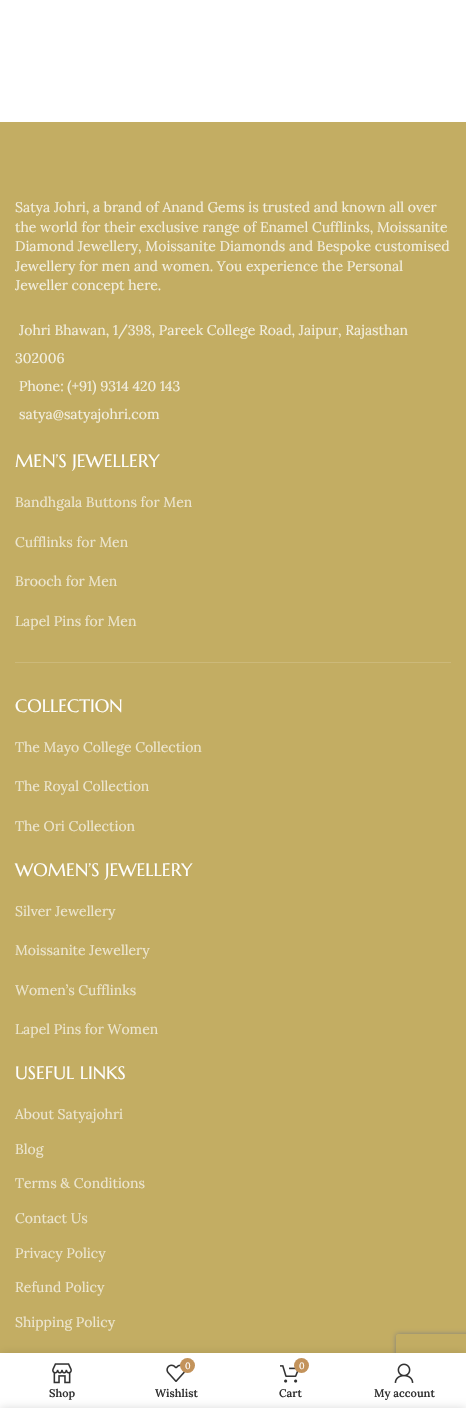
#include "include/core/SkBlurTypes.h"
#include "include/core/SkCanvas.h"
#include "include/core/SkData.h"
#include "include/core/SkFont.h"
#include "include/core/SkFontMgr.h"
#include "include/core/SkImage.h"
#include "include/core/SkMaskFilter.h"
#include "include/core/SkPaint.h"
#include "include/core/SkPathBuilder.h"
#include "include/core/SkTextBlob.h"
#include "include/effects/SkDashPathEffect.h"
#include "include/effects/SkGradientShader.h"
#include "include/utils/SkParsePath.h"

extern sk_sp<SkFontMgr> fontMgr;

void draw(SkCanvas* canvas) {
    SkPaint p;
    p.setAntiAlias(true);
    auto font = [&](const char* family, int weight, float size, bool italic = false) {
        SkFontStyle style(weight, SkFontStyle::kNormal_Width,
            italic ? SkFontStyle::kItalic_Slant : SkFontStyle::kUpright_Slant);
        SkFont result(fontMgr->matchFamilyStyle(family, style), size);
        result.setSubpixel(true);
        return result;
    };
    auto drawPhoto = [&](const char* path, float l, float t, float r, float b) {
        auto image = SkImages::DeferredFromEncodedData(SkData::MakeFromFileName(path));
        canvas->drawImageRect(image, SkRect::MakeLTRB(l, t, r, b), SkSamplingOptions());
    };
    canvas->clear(0xFFFFFFFF);
    p.setColor(0xFFC3AD63);
    canvas->drawRect(SkRect::MakeLTRB(0, 122, 466, 1353), p);
    auto font1 = font("Lora", 400, 14);
    p.setColor(0xFFF3EFE0);
    {
        const struct { const char* s; float x, y; } items[] = {
            {"Satya Johri, a brand of Anand Gems is trusted and known all over", 15, 212},
            {"the world for their exclusive range of Enamel Cufflinks, Moissanite", 15, 232},
            {"Diamond Jewellery, Moissanite Diamonds and Bespoke customised", 15, 251},
            {"Jewellery for men and women. You experience the Personal", 15, 271},
            {"Jeweller concept here.", 15, 290},
            {"Johri Bhawan, 1/398, Pareek College Road, Jaipur, Rajasthan", 19, 335},
            {"302006", 15, 363},
            {"Phone: (+91) 9314 420 143", 19, 391},
            {"satya@satyajohri.com", 19, 419},
        };
        for (auto [s, x, y] : items) {
            canvas->drawString(s, x, y, font1, p);
        }
    }
    p.setColor(0xFFCCB97A);
    canvas->drawRect(SkRect::MakeLTRB(15, 662, 451, 663), p);
    auto font2 = font("Marcellus SC", 400, 18);
    p.setColor(0xFFFFFFFF);
    canvas->drawString("MEN’S JEWELLERY", 15, 467, font2, p);
    p.setColor(0xFFEDE6D0);
    {
        const struct { const char* s; float x, y; } items[] = {
            {"Bandhgala Buttons for Men", 15, 507},
            {"Cufflinks for Men", 15, 547},
            {"Brooch for Men", 15, 586},
            {"Lapel Pins for Men", 15, 626},
        };
        for (auto [s, x, y] : items) {
            canvas->drawString(s, x, y, font1, p);
        }
    }
    p.setColor(0xFFFFFFFF);
    canvas->drawString("COLLECTION", 15, 712, font2, p);
    p.setColor(0xFFEDE6D0);
    {
        const struct { const char* s; float x, y; } items[] = {
            {"The Mayo College Collection", 15, 752},
            {"The Royal Collection", 15, 791},
            {"The Ori Collection", 15, 831},
        };
        for (auto [s, x, y] : items) {
            canvas->drawString(s, x, y, font1, p);
        }
    }
    p.setColor(0xFFFFFFFF);
    canvas->drawString("WOMEN’S JEWELLERY", 15, 876, font2, p);
    p.setColor(0xFFEDE6D0);
    {
        const struct { const char* s; float x, y; } items[] = {
            {"Silver Jewellery", 15, 916},
            {"Moissanite Jewellery", 15, 955},
            {"Women’s Cufflinks", 15, 995},
            {"Lapel Pins for Women", 15, 1034},
        };
        for (auto [s, x, y] : items) {
            canvas->drawString(s, x, y, font1, p);
        }
    }
    p.setColor(0xFFFFFFFF);
    canvas->drawString("USEFUL LINKS", 15, 1079, font2, p);
    p.setColor(0xFFEDE6D0);
    {
        const struct { const char* s; float x, y; } items[] = {
            {"About Satyajohri", 15, 1119},
            {"Blog", 15, 1154},
            {"Terms & Conditions", 15, 1188},
            {"Contact Us", 15, 1223},
            {"Privacy Policy", 15, 1258},
            {"Refund Policy", 15, 1292},
            {"Shipping Policy", 15, 1327},
        };
        for (auto [s, x, y] : items) {
            canvas->drawString(s, x, y, font1, p);
        }
    }
    canvas->save();
    canvas->clipPath(SkPathBuilder(SkPathFillType::kEvenOdd).moveTo(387, 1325).lineTo(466, 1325).lineTo(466, 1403).lineTo(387, 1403).close().moveTo(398, 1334).lineTo(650, 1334).cubicTo(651, 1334, 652, 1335, 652, 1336).lineTo(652, 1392).cubicTo(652, 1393, 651, 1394, 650, 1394).lineTo(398, 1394).cubicTo(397, 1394, 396, 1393, 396, 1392).lineTo(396, 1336).cubicTo(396, 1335, 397, 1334, 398, 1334).close().detach(), true);
    p.setColor(0xFF808080);
    p.setMaskFilter(SkMaskFilter::MakeBlur(kNormal_SkBlurStyle, 2.5f));
    canvas->drawRoundRect(SkRect::MakeLTRB(396, 1334, 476, 1394), 2, 2, p);
    p.setMaskFilter(nullptr);
    canvas->restore();
    p.setColor(0x1F000000);
    p.setMaskFilter(SkMaskFilter::MakeBlur(kNormal_SkBlurStyle, 4.5f));
    canvas->drawRect(SkRect::MakeLTRB(0, 1353, 466, 1408), p);
    p.setMaskFilter(nullptr);
    p.setColor(0xFFFFFFFF);
    canvas->drawRect(SkRect::MakeLTRB(0, 1353, 466, 1408), p);
    drawPhoto("media/1.png", 52, 1363, 72, 1384);
    auto font3 = font("Lora", 600, 11);
    p.setColor(0xFF333333);
    canvas->drawString("Shop", 49, 1397, font3, p);
    drawPhoto("media/2.png", 166, 1364, 186, 1382);
    p.setColor(0xFFC3935B);
    canvas->drawCircle(187.5f, 1365.5f, 7.5f, p);
    auto font4 = font("Lora", 400, 9);
    p.setColor(0xFFFFFFFF);
    canvas->drawString("0", 185, 1369, font4, p);
    p.setColor(0xFF333333);
    canvas->drawString("Wishlist", 155, 1397, font3, p);
    drawPhoto("media/3.png", 280, 1365, 299, 1383);
    p.setColor(0xFFC3935B);
    canvas->drawCircle(301.5f, 1365.5f, 7.5f, p);
    p.setColor(0xFFFFFFFF);
    canvas->drawString("0", 299, 1369, font4, p);
    p.setColor(0xFF333333);
    canvas->drawString("Cart", 279, 1397, font3, p);
    drawPhoto("media/4.png", 394, 1363, 414, 1383);
    canvas->drawString("My account", 374, 1397, font3, p);
    p.setColor(0x24000000);
    p.setMaskFilter(SkMaskFilter::MakeBlur(kNormal_SkBlurStyle, 4.5f));
    canvas->drawRect(SkRect::MakeLTRB(0, 1408, 466, 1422), p);
    p.setMaskFilter(nullptr);
}
